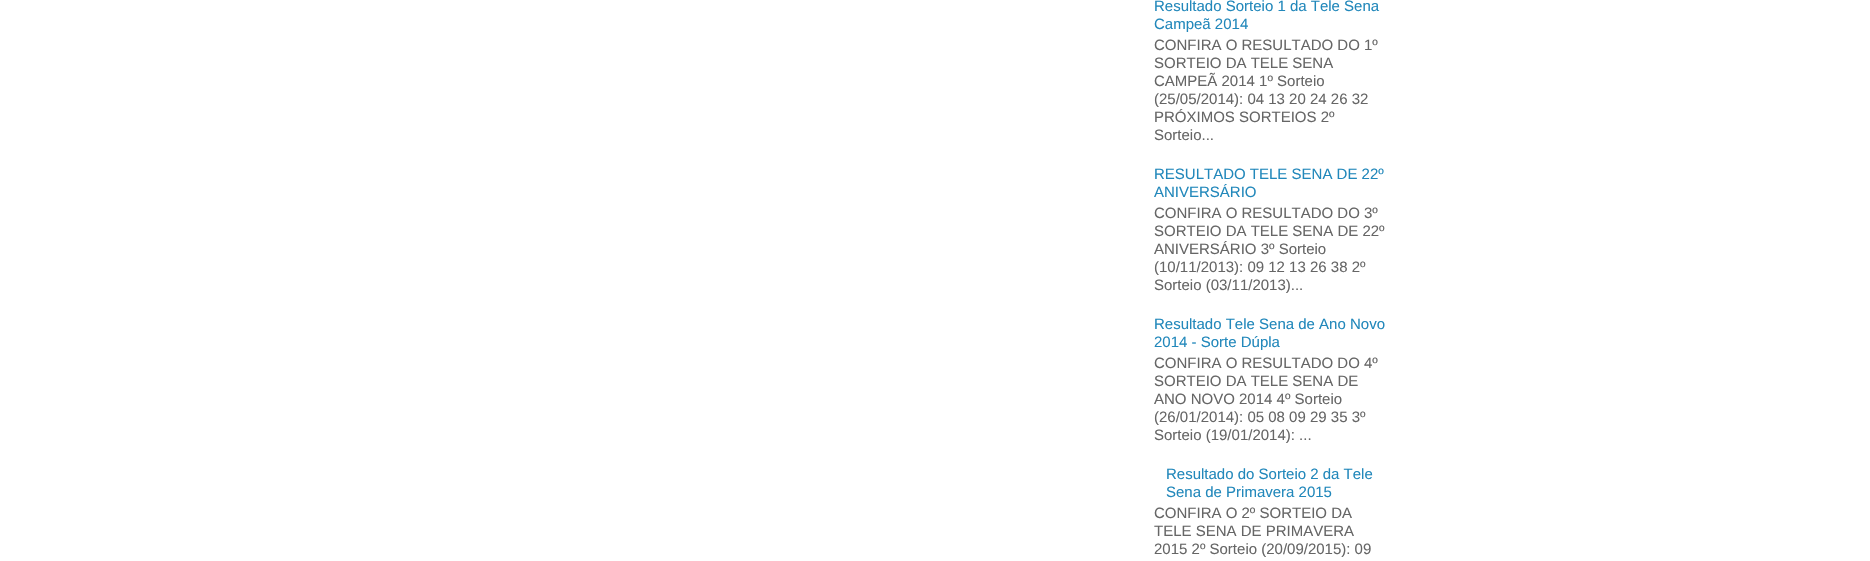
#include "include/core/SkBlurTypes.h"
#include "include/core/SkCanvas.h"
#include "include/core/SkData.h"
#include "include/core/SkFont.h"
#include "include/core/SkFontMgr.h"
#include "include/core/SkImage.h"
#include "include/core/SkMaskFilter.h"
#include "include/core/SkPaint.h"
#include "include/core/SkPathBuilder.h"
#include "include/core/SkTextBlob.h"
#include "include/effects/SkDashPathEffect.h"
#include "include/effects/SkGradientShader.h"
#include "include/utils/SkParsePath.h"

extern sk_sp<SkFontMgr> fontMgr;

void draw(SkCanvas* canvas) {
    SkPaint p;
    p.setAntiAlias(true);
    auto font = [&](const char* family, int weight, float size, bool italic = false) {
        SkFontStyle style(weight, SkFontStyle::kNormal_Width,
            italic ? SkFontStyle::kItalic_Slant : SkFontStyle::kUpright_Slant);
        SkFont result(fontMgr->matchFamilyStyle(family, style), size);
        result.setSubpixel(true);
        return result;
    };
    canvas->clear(0xFFFFFFFF);
    auto font1 = font("Liberation Sans", 400, 15);
    p.setColor(0xFF2288BB);
    canvas->drawString("Resultado Sorteio 1 da Tele Sena", 1154, 11, font1, p);
    canvas->drawString("Campeã 2014", 1154, 29, font1, p);
    p.setColor(0xFF666666);
    {
        const struct { const char* s; float x, y; } items[] = {
            {"CONFIRA O RESULTADO DO 1º", 1154, 50},
            {"SORTEIO DA TELE SENA", 1154, 68},
            {"CAMPEÃ 2014 1º Sorteio", 1154, 86},
            {"(25/05/2014): 04 13 20 24 26 32", 1154, 104},
            {"PRÓXIMOS SORTEIOS 2º", 1154, 122},
            {"Sorteio...", 1154, 140},
        };
        for (auto [s, x, y] : items) {
            canvas->drawString(s, x, y, font1, p);
        }
    }
    p.setColor(0xFF2288BB);
    canvas->drawString("RESULTADO TELE SENA DE 22º", 1154, 179, font1, p);
    canvas->drawString("ANIVERSÁRIO", 1154, 197, font1, p);
    p.setColor(0xFF666666);
    {
        const struct { const char* s; float x, y; } items[] = {
            {"CONFIRA O RESULTADO DO 3º", 1154, 218},
            {"SORTEIO DA TELE SENA DE 22º", 1154, 236},
            {"ANIVERSÁRIO 3º Sorteio", 1154, 254},
            {"(10/11/2013): 09 12 13 26 38 2º", 1154, 272},
            {"Sorteio (03/11/2013)...", 1154, 290},
        };
        for (auto [s, x, y] : items) {
            canvas->drawString(s, x, y, font1, p);
        }
    }
    p.setColor(0xFF2288BB);
    canvas->drawString("Resultado Tele Sena de Ano Novo", 1154, 329, font1, p);
    canvas->drawString("2014 - Sorte Dúpla", 1154, 347, font1, p);
    p.setColor(0xFF666666);
    {
        const struct { const char* s; float x, y; } items[] = {
            {"CONFIRA O RESULTADO DO 4º", 1154, 368},
            {"SORTEIO DA TELE SENA DE", 1154, 386},
            {"ANO NOVO 2014 4º Sorteio", 1154, 404},
            {"(26/01/2014): 05 08 09 29 35 3º", 1154, 422},
            {"Sorteio (19/01/2014): ...", 1154, 440},
        };
        for (auto [s, x, y] : items) {
            canvas->drawString(s, x, y, font1, p);
        }
    }
    p.setColor(0xFF2288BB);
    canvas->drawString("Resultado do Sorteio 2 da Tele", 1166, 479, font1, p);
    canvas->drawString("Sena de Primavera 2015", 1166, 497, font1, p);
    p.setColor(0xFF666666);
    {
        const struct { const char* s; float x, y; } items[] = {
            {"CONFIRA O 2º SORTEIO DA", 1154, 518},
            {"TELE SENA DE PRIMAVERA", 1154, 536},
            {"2015 2º Sorteio (20/09/2015): 09", 1154, 554},
        };
        for (auto [s, x, y] : items) {
            canvas->drawString(s, x, y, font1, p);
        }
    }
}
